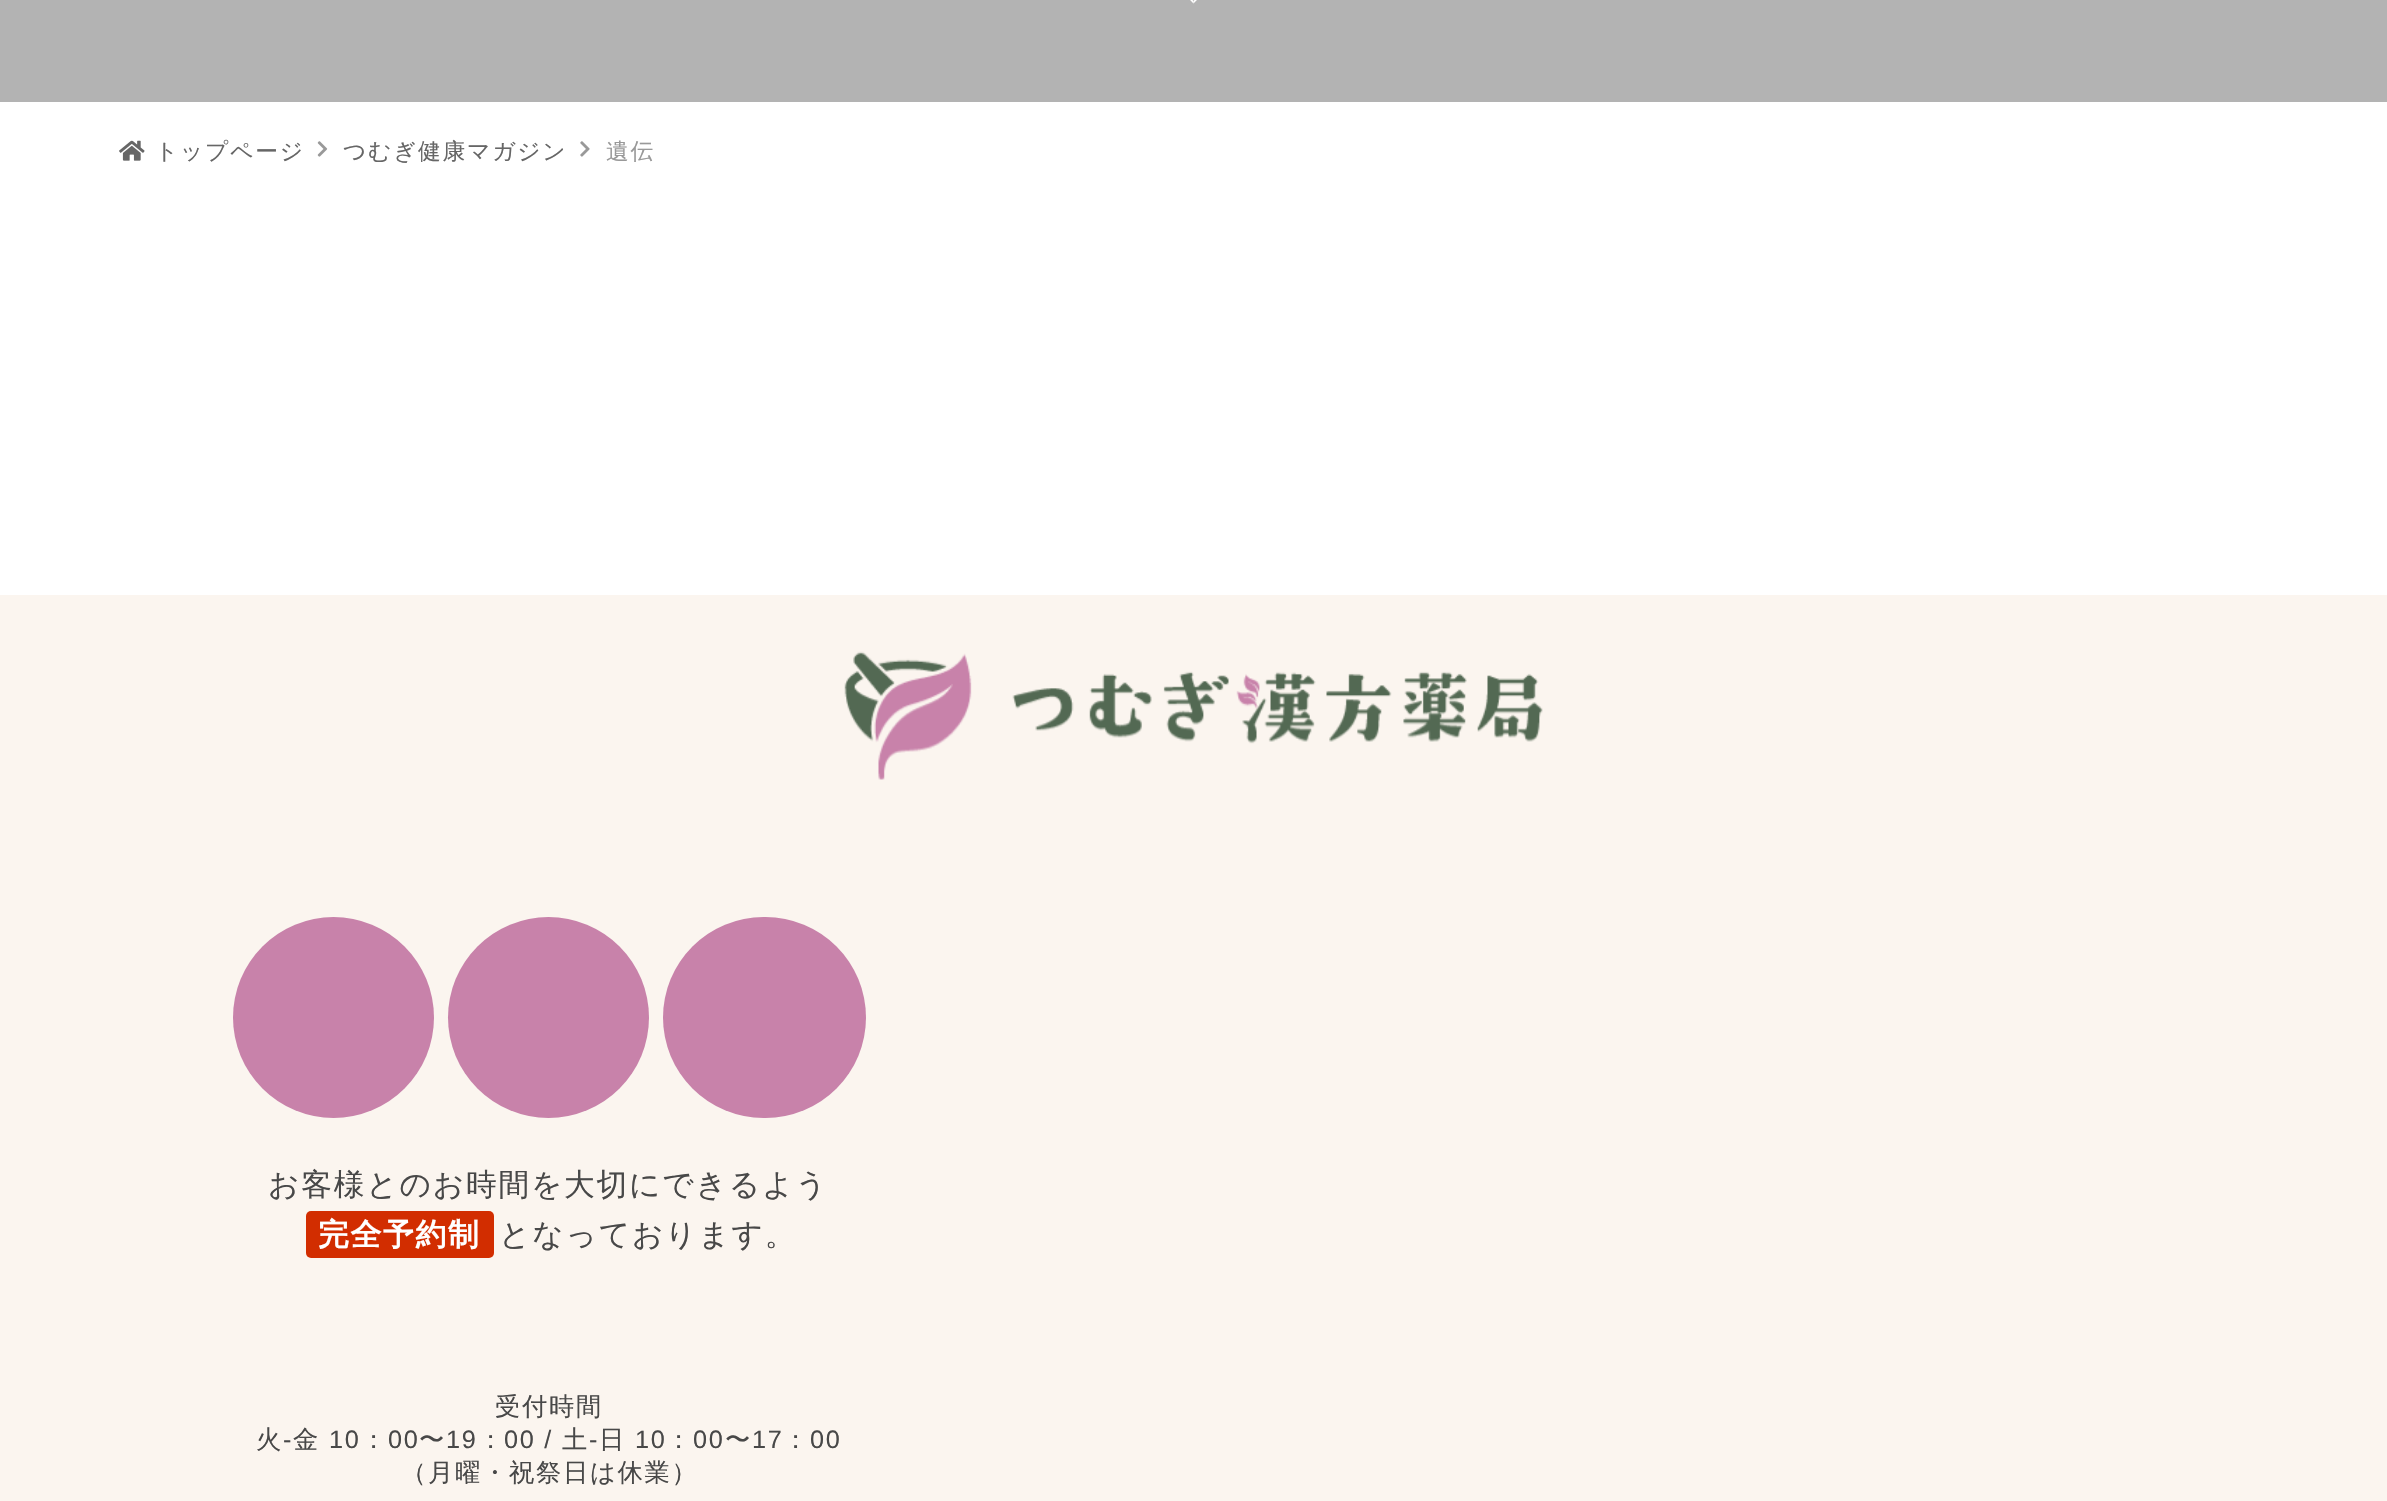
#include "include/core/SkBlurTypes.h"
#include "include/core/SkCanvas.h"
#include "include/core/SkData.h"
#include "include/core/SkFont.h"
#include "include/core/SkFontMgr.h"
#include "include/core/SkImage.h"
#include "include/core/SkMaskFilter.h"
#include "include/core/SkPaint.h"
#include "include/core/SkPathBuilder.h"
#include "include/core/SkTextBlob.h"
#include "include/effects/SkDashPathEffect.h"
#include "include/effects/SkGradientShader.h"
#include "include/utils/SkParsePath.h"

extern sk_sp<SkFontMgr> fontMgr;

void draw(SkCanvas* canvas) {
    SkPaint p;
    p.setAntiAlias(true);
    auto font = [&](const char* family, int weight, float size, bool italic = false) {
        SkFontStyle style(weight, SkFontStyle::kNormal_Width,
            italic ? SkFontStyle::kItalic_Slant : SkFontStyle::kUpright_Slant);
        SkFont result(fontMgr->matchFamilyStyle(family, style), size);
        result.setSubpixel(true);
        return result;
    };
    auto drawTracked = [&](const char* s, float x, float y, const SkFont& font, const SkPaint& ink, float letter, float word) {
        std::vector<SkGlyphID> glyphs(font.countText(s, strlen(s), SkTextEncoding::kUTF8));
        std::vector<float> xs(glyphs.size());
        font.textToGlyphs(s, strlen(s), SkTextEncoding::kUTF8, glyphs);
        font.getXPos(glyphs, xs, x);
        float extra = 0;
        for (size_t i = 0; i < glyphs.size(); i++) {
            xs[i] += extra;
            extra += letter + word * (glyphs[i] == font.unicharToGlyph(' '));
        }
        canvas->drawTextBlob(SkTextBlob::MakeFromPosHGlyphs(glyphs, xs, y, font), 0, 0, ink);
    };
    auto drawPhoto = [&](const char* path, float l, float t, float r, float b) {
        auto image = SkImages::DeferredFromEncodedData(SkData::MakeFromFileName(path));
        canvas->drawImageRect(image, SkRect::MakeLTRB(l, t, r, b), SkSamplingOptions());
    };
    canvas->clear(0xFFFFFFFF);
    p.setColor(0xFFB3B3B3);
    canvas->drawRect(SkRect::MakeLTRB(0, 0, 2387, 102), p);
    p.setColor(0xFFFFFFFF);
    canvas->drawPath(SkPathBuilder().moveTo(1218, -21.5f).lineTo(1193.5f, 3.5f).lineTo(1193.5f, 1).lineTo(1216, -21.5f).close().detach(), p);
    canvas->drawPath(SkPathBuilder().moveTo(1193.5f, 3.5f).lineTo(1169, -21.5f).lineTo(1171, -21.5f).lineTo(1193.5f, 1).close().detach(), p);
    drawPhoto("media/1.png", 119, 140, 145, 161);
    auto font1 = font("WenQuanYi Zen Hei", 500, 22.75f);
    p.setColor(0xFF666666);
    drawTracked("トップページ", 155, 159, font1, p, 1.75f, 0);
    drawPhoto("media/2.png", 317, 141, 328, 157);
    drawTracked("つむぎ健康マガジン", 343, 159, font1, p, 1.75f, 0);
    drawPhoto("media/3.png", 580, 141, 590, 157);
    p.setColor(0xFF999999);
    drawTracked("遺伝", 606, 159, font1, p, 1.75f, 0);
    p.setColor(0xFFFBF5EF);
    canvas->drawRect(SkRect::MakeLTRB(0, 595, 2387, 1501), p);
    drawPhoto("media/4.png", 844, 651, 1543, 780);
    p.setColor(0xFFC882AA);
    canvas->drawCircle(333.5f, 1017.5f, 100.5f, p);
    canvas->drawCircle(548.5f, 1017.5f, 100.5f, p);
    canvas->drawRoundRect(SkRect::MakeLTRB(663, 917, 866, 1118), 100.5f, 100.5f, p);
    auto font2 = font("WenQuanYi Zen Hei", 500, 30.75f);
    p.setColor(0xFF484848);
    drawTracked("お客様とのお時間を大切にできるよう", 268, 1195, font2, p, 1.75f, 0);
    p.setColor(0xFFD22D00);
    canvas->drawRoundRect(SkRect::MakeLTRB(306, 1211, 494, 1258), 5, 5, p);
    auto font3 = font("WenQuanYi Zen Hei", 700, 30.75f);
    p.setColor(0xFFFFFFFF);
    drawTracked("完全予約制", 318, 1245, font3, p, 1.75f, 0);
    p.setColor(0xFF484848);
    drawTracked("となっております。", 499, 1245, font2, p, 1.75f, 0);
    auto font4 = font("WenQuanYi Zen Hei", 500, 25.25f);
    drawTracked("受付時間", 495, 1415, font4, p, 1.75f, 0);
    drawTracked("火", 256, 1448, font4, p, 1.75f, 0);
    auto font5 = font("Liberation Sans", 400, 25.25f);
    drawTracked("-", 283, 1448, font5, p, 1.75f, 0);
    drawTracked("金", 293, 1448, font4, p, 1.75f, 0);
    drawTracked("10", 329, 1448, font5, p, 1.75f, 0);
    drawTracked("：", 361, 1448, font4, p, 1.75f, 0);
    drawTracked("00", 388, 1448, font5, p, 1.75f, 0);
    drawTracked("〜", 419, 1448, font4, p, 1.75f, 0);
    drawTracked("19", 446, 1448, font5, p, 1.75f, 0);
    drawTracked("：", 478, 1448, font4, p, 1.75f, 0);
    drawTracked("00 /", 504, 1448, font5, p, 1.75f, 0);
    drawTracked("土", 562, 1448, font4, p, 1.75f, 0);
    drawTracked("-", 589, 1448, font5, p, 1.75f, 0);
    drawTracked("日", 599, 1448, font4, p, 1.75f, 0);
    drawTracked("10", 635, 1448, font5, p, 1.75f, 0);
    drawTracked("：", 666, 1448, font4, p, 1.75f, 0);
    drawTracked("00", 693, 1448, font5, p, 1.75f, 0);
    drawTracked("〜", 725, 1448, font4, p, 1.75f, 0);
    drawTracked("17", 752, 1448, font5, p, 1.75f, 0);
    drawTracked("：", 783, 1448, font4, p, 1.75f, 0);
    drawTracked("00", 810, 1448, font5, p, 1.75f, 0);
    drawTracked("（月曜・祝祭日は休業）", 401, 1481, font4, p, 1.75f, 0);
}
